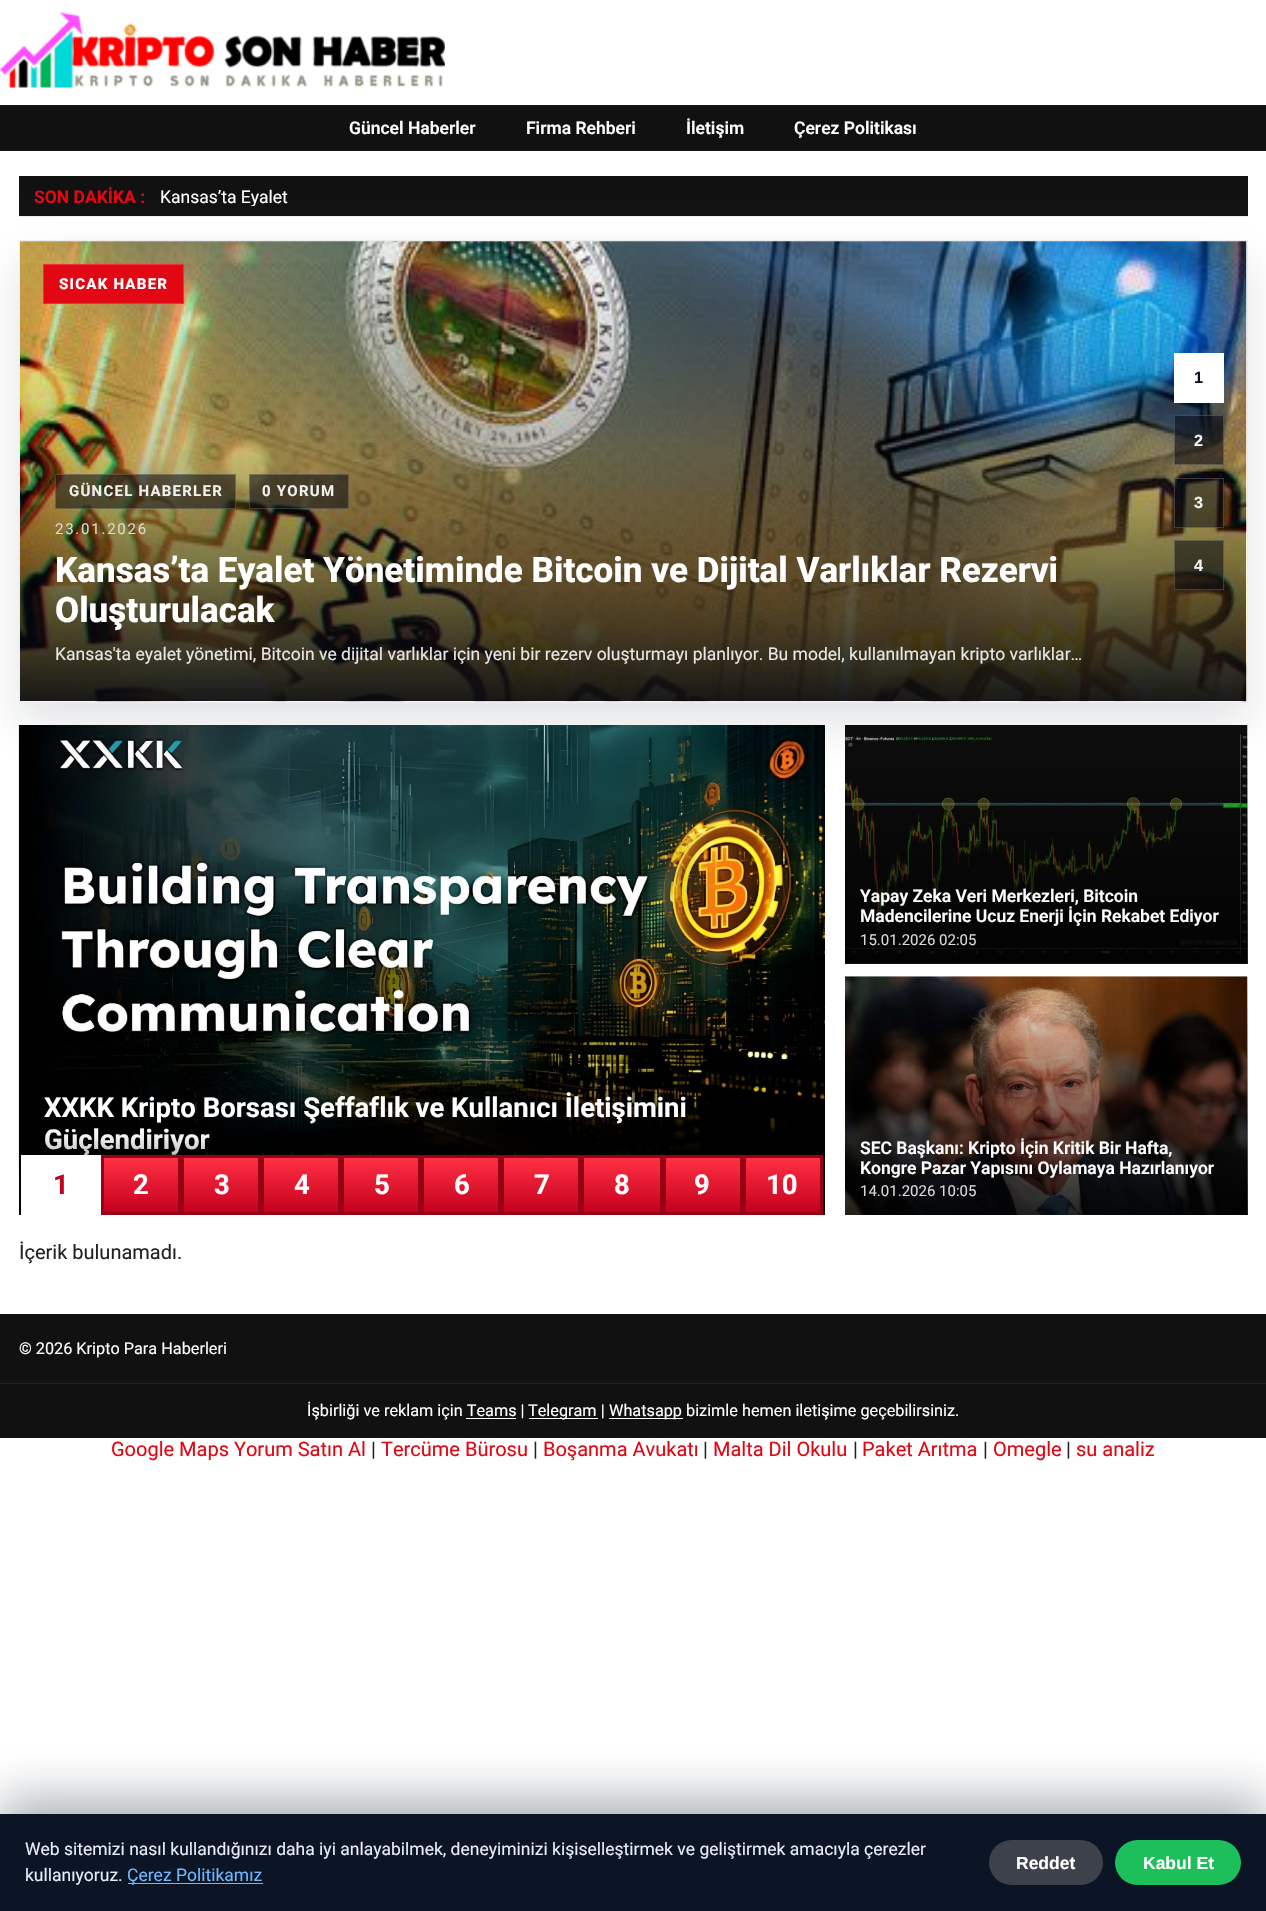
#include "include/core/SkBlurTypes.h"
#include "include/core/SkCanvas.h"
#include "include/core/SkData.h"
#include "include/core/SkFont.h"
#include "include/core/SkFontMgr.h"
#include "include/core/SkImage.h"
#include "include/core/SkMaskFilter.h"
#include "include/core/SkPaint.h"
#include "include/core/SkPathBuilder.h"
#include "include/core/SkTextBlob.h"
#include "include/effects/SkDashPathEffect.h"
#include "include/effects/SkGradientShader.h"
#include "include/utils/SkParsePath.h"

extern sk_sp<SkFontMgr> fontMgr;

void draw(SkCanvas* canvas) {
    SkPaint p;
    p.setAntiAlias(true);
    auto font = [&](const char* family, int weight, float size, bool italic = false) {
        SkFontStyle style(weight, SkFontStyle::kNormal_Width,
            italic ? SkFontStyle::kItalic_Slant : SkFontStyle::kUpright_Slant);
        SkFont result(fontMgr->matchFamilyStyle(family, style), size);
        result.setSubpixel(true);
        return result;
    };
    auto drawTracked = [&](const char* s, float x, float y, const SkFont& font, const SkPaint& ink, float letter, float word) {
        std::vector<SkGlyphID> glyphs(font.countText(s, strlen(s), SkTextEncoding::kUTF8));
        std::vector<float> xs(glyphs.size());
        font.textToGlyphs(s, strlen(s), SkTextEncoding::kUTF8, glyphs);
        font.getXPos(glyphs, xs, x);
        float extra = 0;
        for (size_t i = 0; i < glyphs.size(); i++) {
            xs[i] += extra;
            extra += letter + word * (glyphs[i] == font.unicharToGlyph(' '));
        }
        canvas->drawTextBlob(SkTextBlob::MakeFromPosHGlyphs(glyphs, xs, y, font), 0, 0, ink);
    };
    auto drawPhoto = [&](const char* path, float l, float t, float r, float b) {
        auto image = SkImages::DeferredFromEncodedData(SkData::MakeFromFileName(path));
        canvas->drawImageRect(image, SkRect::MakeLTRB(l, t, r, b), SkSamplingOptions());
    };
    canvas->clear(0xFFFFFFFF);
    drawPhoto("media/1.png", 0, 12, 445, 88);
    p.setColor(0xFF111111);
    canvas->drawRect(SkRect::MakeLTRB(0, 105, 1266, 151), p);
    auto font1 = font("Roboto", 600, 17.5f);
    p.setColor(0xFFFFFFFF);
    {
        const struct { const char* s; float x, y; } items[] = {
            {"Güncel Haberler", 349, 134},
            {"Firma Rehberi", 526, 134},
            {"İletişim", 686, 134},
            {"Çerez Politikası", 794, 134},
        };
        for (auto [s, x, y] : items) {
            canvas->drawString(s, x, y, font1, p);
        }
    }
    p.setColor(0xFFEDEDED);
    canvas->drawRect(SkRect::MakeLTRB(19, 216, 1248, 217), p);
    p.setColor(0xFF111111);
    canvas->drawRect(SkRect::MakeLTRB(19, 176, 1248, 216), p);
    auto font2 = font("Roboto", 700, 17.5f);
    p.setColor(0xFFE30613);
    canvas->drawString("SON DAKİKA :", 34, 203, font2, p);
    canvas->save();
    canvas->clipRect(SkRect::MakeLTRB(160, 186, 1233, 206));
    auto font3 = font("Roboto", 400, 17.5f);
    p.setColor(0xFFFFFFFF);
    canvas->drawString("Kansas’ta Eyalet", 160, 203, font3, p);
    canvas->restore();
    p.setColor(0x1F101828);
    p.setMaskFilter(SkMaskFilter::MakeBlur(kNormal_SkBlurStyle, 22));
    canvas->drawRect(SkRect::MakeLTRB(19, 263, 1248, 725), p);
    p.setMaskFilter(nullptr);
    p.setColor(0xFFFFFFFF);
    canvas->drawRect(SkRect::MakeLTRB(19.5f, 240.5f, 1247.5f, 702.5f), p);
    p.setStyle(SkPaint::kStroke_Style);
    p.setStrokeWidth(1);
    p.setColor(0xFFECECEE);
    canvas->drawRect(SkRect::MakeLTRB(19.5f, 240.5f, 1247.5f, 702.5f), p);
    drawPhoto("media/2.png", 20, 241, 1247, 702);
    p.setStyle(SkPaint::kFill_Style);
    {
        const SkColor colors[] = {0xEB050710, 0x33050710, 0x00050710};
        const float stops[] = {0, 0.55f, 1};
        const SkPoint ends[] = {{633, 701}, {633, 241}};
        p.setShader(SkGradientShader::MakeLinear(ends, colors, stops, 3, SkTileMode::kClamp));
        p.setAlpha(255);
    }
    canvas->drawRect(SkRect::MakeLTRB(20, 263, 1246, 701), p);
    p.setShader(nullptr);
    p.setColor(0xFFE30613);
    canvas->drawRect(SkRect::MakeLTRB(43.5f, 264.5f, 183.5f, 303.5f), p);
    p.setStyle(SkPaint::kStroke_Style);
    p.setColor(0xFFE8333D);
    canvas->drawRect(SkRect::MakeLTRB(43.5f, 264.5f, 183.5f, 303.5f), p);
    auto font4 = font("Roboto", 800, 15);
    p.setStyle(SkPaint::kFill_Style);
    p.setColor(0xFFFFFFFF);
    drawTracked("SICAK HABER", 59, 289, font4, p, 1.25f, 0);
    p.setColor(0x8C050710);
    canvas->drawRect(SkRect::MakeLTRB(55, 474, 236, 509), p);
    p.setStyle(SkPaint::kStroke_Style);
    p.setColor(0x2EFFFFFF);
    canvas->drawRect(SkRect::MakeLTRB(55.5f, 474.5f, 235.5f, 508.5f), p);
    auto font5 = font("Roboto", 700, 15);
    p.setStyle(SkPaint::kFill_Style);
    p.setColor(0xFFF1F0EE);
    drawTracked("GÜNCEL HABERLER", 69, 496, font5, p, 1.25f, 0);
    p.setColor(0x8C050710);
    canvas->drawRect(SkRect::MakeLTRB(249, 474, 349, 509), p);
    p.setStyle(SkPaint::kStroke_Style);
    p.setColor(0x2EFFFFFF);
    canvas->drawRect(SkRect::MakeLTRB(249.5f, 474.5f, 348.5f, 508.5f), p);
    p.setStyle(SkPaint::kFill_Style);
    p.setColor(0xFFF1F0EE);
    drawTracked("0 YORUM", 262, 496, font5, p, 1.25f, 0);
    auto font6 = font("Roboto", 400, 15);
    p.setColor(0xFFDDD9CC);
    drawTracked("23.01.2026", 55, 534, font6, p, 1.75f, 0);
    auto font7 = font("Roboto", 800, 35);
    p.setColor(0xFFFFFFFF);
    canvas->drawString("Kansas’ta Eyalet Yönetiminde Bitcoin ve Dijital Varlıklar Rezervi", 55, 582, font7, p);
    canvas->drawString("Oluşturulacak", 55, 622, font7, p);
    p.setColor(0xFFE7E6E4);
    canvas->drawString("Kansas'ta eyalet yönetimi, Bitcoin ve dijital varlıklar için yeni bir rezerv oluşturmayı planlıyor. Bu model, kullanılmayan kripto varlıklar…", 55, 660, font3, p);
    p.setColor(0xFFFFFFFF);
    canvas->drawRect(SkRect::MakeLTRB(1174, 353, 1224, 403), p);
    auto font8 = font("Liberation Sans", 700, 16.25f);
    p.setColor(0xFF0B1120);
    canvas->drawString("1", 1194, 383, font8, p);
    p.setColor(0x8C050710);
    canvas->drawRect(SkRect::MakeLTRB(1174, 415, 1224, 465), p);
    p.setStyle(SkPaint::kStroke_Style);
    p.setColor(0x2EFFFFFF);
    canvas->drawRect(SkRect::MakeLTRB(1174.5f, 415.5f, 1223.5f, 464.5f), p);
    p.setStyle(SkPaint::kFill_Style);
    p.setColor(0xFFF4F4F4);
    canvas->drawString("2", 1194, 446, font8, p);
    p.setColor(0x8C050710);
    canvas->drawRect(SkRect::MakeLTRB(1174, 478, 1224, 528), p);
    p.setStyle(SkPaint::kStroke_Style);
    p.setColor(0x2EFFFFFF);
    canvas->drawRect(SkRect::MakeLTRB(1174.5f, 478.5f, 1223.5f, 527.5f), p);
    p.setStyle(SkPaint::kFill_Style);
    p.setColor(0xFFF4F4F4);
    canvas->drawString("3", 1194, 508, font8, p);
    p.setColor(0x8C050710);
    canvas->drawRect(SkRect::MakeLTRB(1174, 540, 1224, 590), p);
    p.setStyle(SkPaint::kStroke_Style);
    p.setColor(0x2EFFFFFF);
    canvas->drawRect(SkRect::MakeLTRB(1174.5f, 540.5f, 1223.5f, 589.5f), p);
    p.setStyle(SkPaint::kFill_Style);
    p.setColor(0xFFF4F4F4);
    canvas->drawString("4", 1194, 571, font8, p);
    drawPhoto("media/3.png", 18, 725, 825, 1175);
    auto font9 = font("Roboto", 700, 27.5f);
    p.setColor(0xFFFFFFFF);
    canvas->drawString("XXKK Kripto Borsası Şeffaflık ve Kullanıcı İletişimini", 44, 1117, font9, p);
    canvas->drawString("Güçlendiriyor", 44, 1149, font9, p);
    drawPhoto("media/5.png", 845, 976, 1248, 1215);
    {
        const SkColor colors[] = {0xD9000000, 0x00000000};
        const float stops[] = {0, 1};
        const SkPoint ends[] = {{1046, 1215}, {1046, 976}};
        p.setShader(SkGradientShader::MakeLinear(ends, colors, stops, 2, SkTileMode::kClamp));
        p.setAlpha(255);
    }
    canvas->drawRect(SkRect::MakeLTRB(845, 982, 1248, 1215), p);
    canvas->save();
    canvas->clipRect(SkRect::MakeLTRB(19, 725, 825, 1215));
    p.setShader(nullptr);
    p.setColor(0x59000000);
    p.setMaskFilter(SkMaskFilter::MakeBlur(kNormal_SkBlurStyle, 11));
    canvas->drawRect(SkRect::MakeLTRB(19, 1148, 825, 1208), p);
    p.setMaskFilter(nullptr);
    canvas->restore();
    p.setColor(0xFF050505);
    canvas->drawRect(SkRect::MakeLTRB(19, 1155, 825, 1215), p);
    p.setColor(0xFFFFFFFF);
    canvas->drawRect(SkRect::MakeLTRB(21, 1155, 101, 1215), p);
    p.setColor(0xFFC4001D);
    canvas->drawString("1", 53, 1194, font9, p);
    {
        const SkColor colors[] = {0xFFFF3043, 0xFFC4001D};
        const float stops[] = {0, 1};
        const SkPoint ends[] = {{141, 1158}, {141, 1213}};
        p.setShader(SkGradientShader::MakeLinear(ends, colors, stops, 2, SkTileMode::kClamp));
        p.setAlpha(255);
    }
    canvas->drawRect(SkRect::MakeLTRB(104, 1158, 178, 1212), p);
    p.setStyle(SkPaint::kStroke_Style);
    p.setStrokeWidth(3);
    p.setShader(nullptr);
    p.setColor(0xFF950014);
    canvas->drawRect(SkRect::MakeLTRB(102.5f, 1156.5f, 179.5f, 1213.5f), p);
    p.setStyle(SkPaint::kFill_Style);
    p.setColor(0xFFFFFFFF);
    canvas->drawString("2", 133, 1194, font9, p);
    {
        const SkColor colors[] = {0xFFFF3043, 0xFFC4001D};
        const float stops[] = {0, 1};
        const SkPoint ends[] = {{221, 1158}, {221, 1213}};
        p.setShader(SkGradientShader::MakeLinear(ends, colors, stops, 2, SkTileMode::kClamp));
        p.setAlpha(255);
    }
    canvas->drawRect(SkRect::MakeLTRB(184, 1158, 258, 1212), p);
    p.setStyle(SkPaint::kStroke_Style);
    p.setShader(nullptr);
    p.setColor(0xFF950014);
    canvas->drawRect(SkRect::MakeLTRB(182.5f, 1156.5f, 259.5f, 1213.5f), p);
    p.setStyle(SkPaint::kFill_Style);
    p.setColor(0xFFFFFFFF);
    canvas->drawString("3", 214, 1194, font9, p);
    {
        const SkColor colors[] = {0xFFFF3043, 0xFFC4001D};
        const float stops[] = {0, 1};
        const SkPoint ends[] = {{301, 1158}, {301, 1213}};
        p.setShader(SkGradientShader::MakeLinear(ends, colors, stops, 2, SkTileMode::kClamp));
        p.setAlpha(255);
    }
    canvas->drawRect(SkRect::MakeLTRB(264, 1158, 338, 1212), p);
    p.setStyle(SkPaint::kStroke_Style);
    p.setShader(nullptr);
    p.setColor(0xFF950014);
    canvas->drawRect(SkRect::MakeLTRB(262.5f, 1156.5f, 339.5f, 1213.5f), p);
    p.setStyle(SkPaint::kFill_Style);
    p.setColor(0xFFFFFFFF);
    canvas->drawString("4", 294, 1194, font9, p);
    {
        const SkColor colors[] = {0xFFFF3043, 0xFFC4001D};
        const float stops[] = {0, 1};
        const SkPoint ends[] = {{381, 1158}, {381, 1213}};
        p.setShader(SkGradientShader::MakeLinear(ends, colors, stops, 2, SkTileMode::kClamp));
        p.setAlpha(255);
    }
    canvas->drawRect(SkRect::MakeLTRB(344, 1158, 418, 1212), p);
    p.setStyle(SkPaint::kStroke_Style);
    p.setShader(nullptr);
    p.setColor(0xFF950014);
    canvas->drawRect(SkRect::MakeLTRB(342.5f, 1156.5f, 419.5f, 1213.5f), p);
    p.setStyle(SkPaint::kFill_Style);
    p.setColor(0xFFFFFFFF);
    canvas->drawString("5", 374, 1194, font9, p);
    {
        const SkColor colors[] = {0xFFFF3043, 0xFFC4001D};
        const float stops[] = {0, 1};
        const SkPoint ends[] = {{461, 1158}, {461, 1213}};
        p.setShader(SkGradientShader::MakeLinear(ends, colors, stops, 2, SkTileMode::kClamp));
        p.setAlpha(255);
    }
    canvas->drawRect(SkRect::MakeLTRB(424, 1158, 498, 1212), p);
    p.setStyle(SkPaint::kStroke_Style);
    p.setShader(nullptr);
    p.setColor(0xFF950014);
    canvas->drawRect(SkRect::MakeLTRB(422.5f, 1156.5f, 499.5f, 1213.5f), p);
    p.setStyle(SkPaint::kFill_Style);
    p.setColor(0xFFFFFFFF);
    canvas->drawString("6", 454, 1194, font9, p);
    {
        const SkColor colors[] = {0xFFFF3043, 0xFFC4001D};
        const float stops[] = {0, 1};
        const SkPoint ends[] = {{541, 1158}, {541, 1213}};
        p.setShader(SkGradientShader::MakeLinear(ends, colors, stops, 2, SkTileMode::kClamp));
        p.setAlpha(255);
    }
    canvas->drawRect(SkRect::MakeLTRB(504, 1158, 578, 1212), p);
    p.setStyle(SkPaint::kStroke_Style);
    p.setShader(nullptr);
    p.setColor(0xFF950014);
    canvas->drawRect(SkRect::MakeLTRB(502.5f, 1156.5f, 579.5f, 1213.5f), p);
    p.setStyle(SkPaint::kFill_Style);
    p.setColor(0xFFFFFFFF);
    canvas->drawString("7", 534, 1194, font9, p);
    {
        const SkColor colors[] = {0xFFFF3043, 0xFFC4001D};
        const float stops[] = {0, 1};
        const SkPoint ends[] = {{622, 1158}, {622, 1213}};
        p.setShader(SkGradientShader::MakeLinear(ends, colors, stops, 2, SkTileMode::kClamp));
        p.setAlpha(255);
    }
    canvas->drawRect(SkRect::MakeLTRB(584, 1158, 660, 1212), p);
    p.setStyle(SkPaint::kStroke_Style);
    p.setShader(nullptr);
    p.setColor(0xFF950014);
    canvas->drawRect(SkRect::MakeLTRB(582.5f, 1156.5f, 661.5f, 1213.5f), p);
    p.setStyle(SkPaint::kFill_Style);
    p.setColor(0xFFFFFFFF);
    canvas->drawString("8", 614, 1194, font9, p);
    {
        const SkColor colors[] = {0xFFFF3043, 0xFFC4001D};
        const float stops[] = {0, 1};
        const SkPoint ends[] = {{703, 1158}, {703, 1213}};
        p.setShader(SkGradientShader::MakeLinear(ends, colors, stops, 2, SkTileMode::kClamp));
        p.setAlpha(255);
    }
    canvas->drawRect(SkRect::MakeLTRB(666, 1158, 740, 1212), p);
    p.setStyle(SkPaint::kStroke_Style);
    p.setShader(nullptr);
    p.setColor(0xFF950014);
    canvas->drawRect(SkRect::MakeLTRB(664.5f, 1156.5f, 741.5f, 1213.5f), p);
    p.setStyle(SkPaint::kFill_Style);
    p.setColor(0xFFFFFFFF);
    canvas->drawString("9", 694, 1194, font9, p);
    {
        const SkColor colors[] = {0xFFFF3043, 0xFFC4001D};
        const float stops[] = {0, 1};
        const SkPoint ends[] = {{783, 1158}, {783, 1213}};
        p.setShader(SkGradientShader::MakeLinear(ends, colors, stops, 2, SkTileMode::kClamp));
        p.setAlpha(255);
    }
    canvas->drawRect(SkRect::MakeLTRB(746, 1158, 820, 1212), p);
    p.setStyle(SkPaint::kStroke_Style);
    p.setShader(nullptr);
    p.setColor(0xFF950014);
    canvas->drawRect(SkRect::MakeLTRB(744.5f, 1156.5f, 821.5f, 1213.5f), p);
    p.setStyle(SkPaint::kFill_Style);
    p.setColor(0xFFFFFFFF);
    canvas->drawString("10", 766, 1194, font9, p);
    drawPhoto("media/4.png", 845, 725, 1248, 964);
    {
        const SkColor colors[] = {0xD9000000, 0x00000000};
        const float stops[] = {0, 1};
        const SkPoint ends[] = {{1046, 964}, {1046, 725}};
        p.setShader(SkGradientShader::MakeLinear(ends, colors, stops, 2, SkTileMode::kClamp));
        p.setAlpha(255);
    }
    canvas->drawRect(SkRect::MakeLTRB(845, 731, 1248, 964), p);
    p.setShader(nullptr);
    p.setColor(0xFFFFFFFF);
    canvas->drawString("Yapay Zeka Veri Merkezleri, Bitcoin", 860, 902, font1, p);
    canvas->drawString("Madencilerine Ucuz Enerji İçin Rekabet Ediyor", 860, 922, font1, p);
    p.setColor(0xFFD9D9D9);
    canvas->drawString("15.01.2026 02:05", 860, 945, font6, p);
    p.setColor(0xFFFFFFFF);
    canvas->drawString("SEC Başkanı: Kripto İçin Kritik Bir Hafta,", 860, 1154, font1, p);
    canvas->drawString("Kongre Pazar Yapısını Oylamaya Hazırlanıyor", 860, 1174, font1, p);
    p.setColor(0xFFD9D9D9);
    canvas->drawString("14.01.2026 10:05", 860, 1196, font6, p);
    auto font10 = font("Roboto", 400, 20);
    p.setColor(0xFF222222);
    canvas->drawString("İçerik bulunamadı.", 19, 1259, font10, p);
    p.setColor(0xFF111111);
    canvas->drawRect(SkRect::MakeLTRB(0, 1314, 1266, 1383), p);
    auto font11 = font("Roboto", 400, 16.25f);
    p.setColor(0xFFFFFFFF);
    canvas->drawString("© 2026 Kripto Para Haberleri", 19, 1354, font11, p);
    p.setColor(0xFF111111);
    canvas->drawRect(SkRect::MakeLTRB(0, 1384, 1266, 1438), p);
    p.setColor(0xFF242424);
    canvas->drawRect(SkRect::MakeLTRB(0, 1383, 1266, 1384), p);
    p.setColor(0xFFFFFFFF);
    canvas->drawString("İşbirliği ve reklam için Teams |", 307, 1416, font11, p);
    canvas->drawRect(SkRect::MakeLTRB(529, 1418, 598, 1419), p);
    canvas->drawString("Telegram |", 528, 1416, font11, p);
    canvas->drawRect(SkRect::MakeLTRB(609, 1418, 683, 1419), p);
    canvas->drawString("Whatsapp bizimle hemen iletişime geçebilirsiniz.", 609, 1416, font11, p);
    canvas->drawRect(SkRect::MakeLTRB(466, 1418, 516, 1419), p);
    p.setColor(0xFFE30613);
    canvas->drawString("Google Maps Yorum Satın Al", 111, 1456, font10, p);
    p.setColor(0xFF222222);
    canvas->drawString("|", 371, 1456, font10, p);
    p.setColor(0xFFE30613);
    canvas->drawString("Tercüme Bürosu", 381, 1456, font10, p);
    p.setColor(0xFF222222);
    canvas->drawString("|", 533, 1456, font10, p);
    p.setColor(0xFFE30613);
    canvas->drawString("Boşanma Avukatı", 543, 1456, font10, p);
    p.setColor(0xFF222222);
    canvas->drawString("|", 703, 1456, font10, p);
    p.setColor(0xFFE30613);
    canvas->drawString("Malta Dil Okulu", 713, 1456, font10, p);
    p.setColor(0xFF222222);
    canvas->drawString("|", 853, 1456, font10, p);
    p.setColor(0xFFE30613);
    canvas->drawString("Paket Arıtma", 862, 1456, font10, p);
    p.setColor(0xFF222222);
    canvas->drawString("|", 983, 1456, font10, p);
    p.setColor(0xFFE30613);
    canvas->drawString("Omegle", 993, 1456, font10, p);
    p.setColor(0xFF222222);
    canvas->drawString("|", 1066, 1456, font10, p);
    p.setColor(0xFFE30613);
    canvas->drawString("su analiz", 1076, 1456, font10, p);
    p.setColor(0x590C1522);
    p.setMaskFilter(SkMaskFilter::MakeBlur(kNormal_SkBlurStyle, 25));
    canvas->drawRect(SkRect::MakeLTRB(0, 1799, 1266, 1896), p);
    p.setMaskFilter(nullptr);
    p.setColor(0xFF0B1526);
    canvas->drawRect(SkRect::MakeLTRB(0, 1814, 1266, 1911), p);
    p.setColor(0xFFE7ECF6);
    canvas->drawString("Web sitemizi nasıl kullandığınızı daha iyi anlayabilmek, deneyiminizi kişiselleştirmek ve geliştirmek amacıyla çerezler", 25, 1855, font3, p);
    canvas->drawString("kullanıyoruz.", 25, 1881, font3, p);
    p.setColor(0xFF6FB9FF);
    canvas->drawRect(SkRect::MakeLTRB(128, 1883, 263, 1884), p);
    canvas->drawString("Çerez Politikamız", 127, 1881, font3, p);
    p.setColor(0xFF3C414B);
    canvas->drawRoundRect(SkRect::MakeLTRB(989, 1840, 1103, 1885), 22.5f, 22.5f, p);
    auto font12 = font("Liberation Sans", 700, 17.5f);
    p.setColor(0xFFFFFFFF);
    canvas->drawString("Reddet", 1016, 1869, font12, p);
    p.setColor(0xFF1DBF5B);
    canvas->drawRoundRect(SkRect::MakeLTRB(1115, 1840, 1241, 1885), 22.5f, 22.5f, p);
    p.setColor(0xFFFFFFFF);
    canvas->drawString("Kabul Et", 1143, 1869, font12, p);
}
